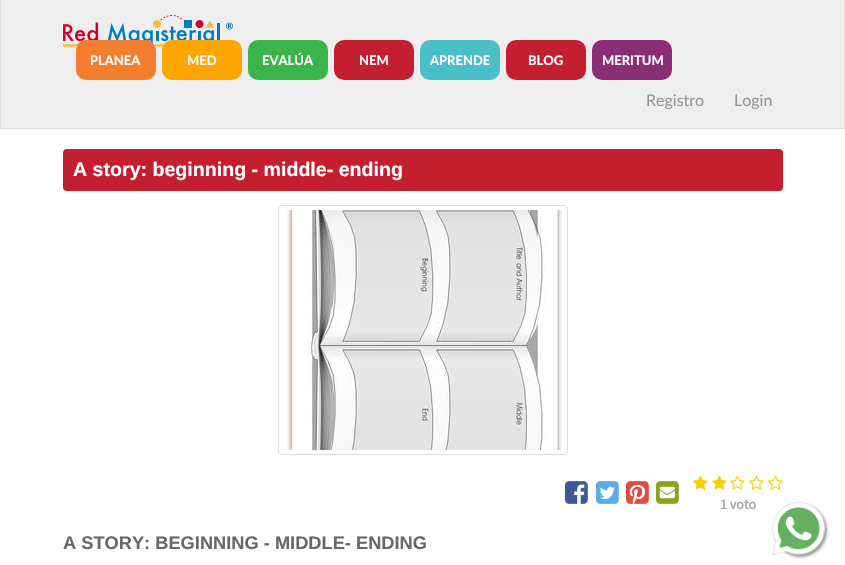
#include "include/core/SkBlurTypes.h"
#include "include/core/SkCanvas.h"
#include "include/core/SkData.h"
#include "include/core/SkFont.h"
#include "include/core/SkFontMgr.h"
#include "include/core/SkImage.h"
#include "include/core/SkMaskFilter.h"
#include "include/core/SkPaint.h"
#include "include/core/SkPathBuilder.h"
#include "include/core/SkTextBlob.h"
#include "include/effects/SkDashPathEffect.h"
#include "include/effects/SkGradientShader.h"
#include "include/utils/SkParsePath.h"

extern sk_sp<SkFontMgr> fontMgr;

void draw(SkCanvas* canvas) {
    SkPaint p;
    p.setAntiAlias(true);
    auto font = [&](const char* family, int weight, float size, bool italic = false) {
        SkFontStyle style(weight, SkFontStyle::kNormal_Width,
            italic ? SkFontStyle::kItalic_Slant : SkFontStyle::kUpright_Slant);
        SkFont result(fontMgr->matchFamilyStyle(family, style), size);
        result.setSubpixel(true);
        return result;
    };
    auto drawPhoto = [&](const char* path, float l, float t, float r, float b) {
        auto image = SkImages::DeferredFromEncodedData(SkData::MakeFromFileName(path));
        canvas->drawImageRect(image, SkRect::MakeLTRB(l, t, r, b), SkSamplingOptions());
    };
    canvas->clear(0xFFFFFFFF);
    {
        const struct { float l, t, r, b; SkColor color; } items[] = {
            {1, 0, 844, 128, 0xFFEEEEEE},
            {844, 0, 845, 129, 0xFFDDDDDD},
            {0, 128, 845, 129, 0xFFDDDDDD},
            {0, 0, 1, 129, 0xFFDDDDDD},
        };
        for (auto [l, t, r, b, color] : items) {
            p.setColor(color);
            canvas->drawRect(SkRect::MakeLTRB(l, t, r, b), p);
        }
    }
    drawPhoto("media/1.png", 63, 15, 233, 47);
    p.setColor(0xFFF47E2F);
    canvas->drawRoundRect(SkRect::MakeLTRB(76, 40, 156, 80), 10, 10, p);
    auto font1 = font("Lato", 700, 13);
    p.setColor(0xFFFFFFFF);
    canvas->drawString("PLANEA", 90, 65, font1, p);
    p.setColor(0xFFFFA500);
    canvas->drawRoundRect(SkRect::MakeLTRB(162, 40, 242, 80), 10, 10, p);
    p.setColor(0xFFFFFFFF);
    canvas->drawString("MED", 187, 65, font1, p);
    p.setColor(0xFF39B54A);
    canvas->drawRoundRect(SkRect::MakeLTRB(248, 40, 328, 80), 10, 10, p);
    p.setColor(0xFFFFFFFF);
    canvas->drawString("EVALÚA", 262, 65, font1, p);
    p.setColor(0xFFC41F30);
    canvas->drawRoundRect(SkRect::MakeLTRB(334, 40, 414, 80), 10, 10, p);
    p.setColor(0xFFFFFFFF);
    canvas->drawString("NEM", 359, 65, font1, p);
    p.setColor(0xFF4ABFC9);
    canvas->drawRoundRect(SkRect::MakeLTRB(420, 40, 500, 80), 10, 10, p);
    p.setColor(0xFFFFFFFF);
    canvas->drawString("APRENDE", 430, 65, font1, p);
    p.setColor(0xFFC41F30);
    canvas->drawRoundRect(SkRect::MakeLTRB(506, 40, 586, 80), 10, 10, p);
    p.setColor(0xFFFFFFFF);
    canvas->drawString("BLOG", 528, 65, font1, p);
    p.setColor(0xFF8C2E76);
    canvas->drawRoundRect(SkRect::MakeLTRB(592, 40, 672, 80), 10, 10, p);
    p.setColor(0xFFFFFFFF);
    canvas->drawString("MERITUM", 602, 65, font1, p);
    auto font2 = font("Lato", 400, 16);
    p.setColor(0xFF909699);
    canvas->drawString("Registro", 646, 106, font2, p);
    canvas->drawString("Login", 734, 106, font2, p);
    p.setColor(0xFFC41F30);
    canvas->drawRoundRect(SkRect::MakeLTRB(63, 149, 783, 191), 4, 4, p);
    auto font3 = font("Liberation Sans", 700, 19.6f);
    p.setColor(0xFFFFFFFF);
    canvas->drawString("A story: beginning - middle- ending", 73, 176, font3, p);
    p.setStyle(SkPaint::kStroke_Style);
    p.setStrokeWidth(1);
    p.setColor(0xFFDDDDDD);
    canvas->drawRoundRect(SkRect::MakeLTRB(278.5f, 205.5f, 567.5f, 454.5f), 3.5f, 3.5f, p);
    drawPhoto("media/2.png", 286, 210, 563, 450);
    drawPhoto("media/3.png", 565, 481, 588, 504);
    drawPhoto("media/4.png", 596, 481, 619, 504);
    drawPhoto("media/5.png", 626, 481, 649, 504);
    drawPhoto("media/6.png", 656, 481, 679, 504);
    drawPhoto("media/7.png", 693, 475, 708, 490);
    drawPhoto("media/7.png", 712, 475, 727, 490);
    drawPhoto("media/8.png", 730, 475, 745, 490);
    drawPhoto("media/8.png", 749, 475, 764, 490);
    drawPhoto("media/8.png", 768, 475, 783, 490);
    auto font4 = font("Source Sans Pro", 700, 14);
    p.setStyle(SkPaint::kFill_Style);
    p.setColor(0xFFAAAAAA);
    canvas->drawString("1 voto", 720, 509, font4, p);
    auto font5 = font("Liberation Sans", 700, 18.25f);
    p.setColor(0xFF696868);
    canvas->drawString("A STORY: BEGINNING - MIDDLE- ENDING", 63, 549, font5, p);
    p.setColor(0xFF999999);
    p.setMaskFilter(SkMaskFilter::MakeBlur(kNormal_SkBlurStyle, 1.5f));
    canvas->drawRoundRect(SkRect::MakeLTRB(774, 504, 827, 557), 26.5f, 26.5f, p);
    p.setMaskFilter(nullptr);
    drawPhoto("media/9.png", 772, 502, 825, 555);
}
